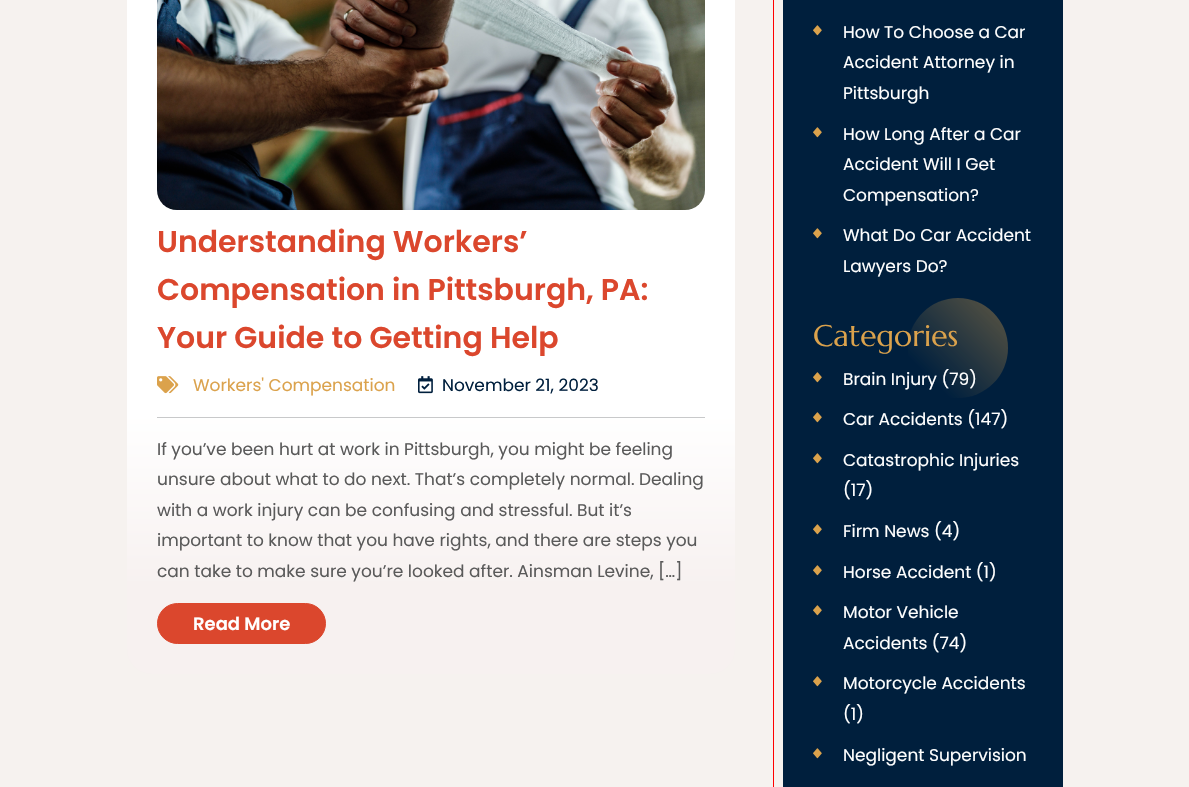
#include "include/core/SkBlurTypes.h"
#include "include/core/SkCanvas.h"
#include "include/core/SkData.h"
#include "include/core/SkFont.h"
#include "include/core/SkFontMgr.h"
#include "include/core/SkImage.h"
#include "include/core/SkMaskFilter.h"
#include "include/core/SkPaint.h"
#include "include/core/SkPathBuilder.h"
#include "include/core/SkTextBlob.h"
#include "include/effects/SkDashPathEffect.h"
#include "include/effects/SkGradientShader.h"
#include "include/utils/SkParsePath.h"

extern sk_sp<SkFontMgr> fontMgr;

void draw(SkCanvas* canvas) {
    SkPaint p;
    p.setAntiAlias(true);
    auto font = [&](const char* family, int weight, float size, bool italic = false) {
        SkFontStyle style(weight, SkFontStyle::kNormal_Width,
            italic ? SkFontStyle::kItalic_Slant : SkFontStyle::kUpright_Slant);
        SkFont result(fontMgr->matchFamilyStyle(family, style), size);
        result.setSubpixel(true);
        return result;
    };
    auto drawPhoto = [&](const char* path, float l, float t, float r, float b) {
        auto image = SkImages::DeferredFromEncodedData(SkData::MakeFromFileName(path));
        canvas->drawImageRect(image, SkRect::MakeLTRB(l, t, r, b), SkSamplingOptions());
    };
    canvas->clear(0xFFF6F2EF);
    {
        const SkColor colors[] = {0xFFFFFFFF, 0xFFF7F1F0};
        const float stops[] = {0.7f, 0.9f};
        const SkPoint ends[] = {{431, -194}, {431, 674}};
        p.setShader(SkGradientShader::MakeLinear(ends, colors, stops, 2, SkTileMode::kClamp));
        p.setAlpha(255);
    }
    canvas->drawRoundRect(SkRect::MakeLTRB(127, -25, 735, 674), 25, 25, p);
    drawPhoto("media/1.png", 157, 0, 705, 210);
    auto font1 = font("Poppins", 600, 30);
    p.setShader(nullptr);
    p.setColor(0xFFDB472D);
    {
        const struct { const char* s; float x, y; } items[] = {
            {"Understanding Workers’", 157, 252},
            {"Compensation in Pittsburgh, PA:", 157, 300},
            {"Your Guide to Getting Help", 157, 348},
        };
        for (auto [s, x, y] : items) {
            canvas->drawString(s, x, y, font1, p);
        }
    }
    drawPhoto("media/2.png", 157, 376, 179, 394);
    auto font2 = font("Poppins", 400, 17);
    p.setColor(0xFFDBA24C);
    canvas->drawString("Workers' Compensation", 193, 391, font2, p);
    drawPhoto("media/3.png", 418, 376, 433, 394);
    p.setColor(0xFF001F3D);
    canvas->drawString("November 21, 2023", 442, 391, font2, p);
    p.setColor(0xFFC8C9CA);
    canvas->drawRect(SkRect::MakeLTRB(157, 417, 705, 418), p);
    p.setColor(0xFF5A5A5A);
    {
        const struct { const char* s; float x, y; } items[] = {
            {"If you’ve been hurt at work in Pittsburgh, you might be feeling", 157, 455},
            {"unsure about what to do next. That’s completely normal. Dealing", 157, 485},
            {"with a work injury can be confusing and stressful. But it’s", 157, 516},
            {"important to know that you have rights, and there are steps you", 157, 546},
            {"can take to make sure you’re looked after. Ainsman Levine, […]", 157, 577},
        };
        for (auto [s, x, y] : items) {
            canvas->drawString(s, x, y, font2, p);
        }
    }
    p.setColor(0xFFDB472D);
    canvas->drawRoundRect(SkRect::MakeLTRB(157.5f, 603.5f, 325.5f, 643.5f), 20, 20, p);
    p.setStyle(SkPaint::kStroke_Style);
    p.setStrokeWidth(1);
    canvas->drawRoundRect(SkRect::MakeLTRB(157.5f, 603.5f, 325.5f, 643.5f), 20, 20, p);
    auto font3 = font("Poppins", 600, 18);
    p.setStyle(SkPaint::kFill_Style);
    p.setColor(0xFFFFFFFF);
    canvas->drawString("Read More", 193, 630, font3, p);
    p.setStyle(SkPaint::kStroke_Style);
    p.setColor(0xFFFF0000);
    canvas->drawRect(SkRect::MakeLTRB(773.5f, -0.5f, 1052.5f, 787.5f), p);
    p.setStyle(SkPaint::kFill_Style);
    p.setColor(0xFF001F3D);
    canvas->drawRect(SkRect::MakeLTRB(783, 0, 1063, 787), p);
    drawPhoto("media/4.png", 813, 25, 822, 36);
    p.setColor(0xFFFFFFFF);
    {
        const struct { const char* s; float x, y; } items[] = {
            {"How To Choose a Car", 843, 38},
            {"Accident Attorney in", 843, 68},
            {"Pittsburgh", 843, 99},
        };
        for (auto [s, x, y] : items) {
            canvas->drawString(s, x, y, font2, p);
        }
    }
    drawPhoto("media/4.png", 813, 127, 822, 138);
    {
        const struct { const char* s; float x, y; } items[] = {
            {"How Long After a Car", 843, 140},
            {"Accident Will I Get", 843, 170},
            {"Compensation?", 843, 201},
        };
        for (auto [s, x, y] : items) {
            canvas->drawString(s, x, y, font2, p);
        }
    }
    drawPhoto("media/4.png", 813, 228, 822, 239);
    canvas->drawString("What Do Car Accident", 843, 241, font2, p);
    canvas->drawString("Lawyers Do?", 843, 272, font2, p);
    auto font4 = font("Marcellus", 400, 30);
    p.setColor(0xFFDBA24C);
    canvas->drawString("Categories", 813, 346, font4, p);
    {
        const SkColor colors[] = {0xBFDBA14B, 0x00DBA14B};
        const float stops[] = {0, 0.87f};
        const SkPoint ends[] = {{1068, 238}, {908, 398}};
        p.setShader(SkGradientShader::MakeLinear(ends, colors, stops, 2, SkTileMode::kClamp));
        p.setAlpha(255);
    }
    canvas->drawCircle(958, 348, 50, p);
    drawPhoto("media/4.png", 813, 372, 822, 383);
    p.setShader(nullptr);
    p.setColor(0xFFFFFFFF);
    canvas->drawString("Brain Injury (79)", 843, 385, font2, p);
    drawPhoto("media/4.png", 813, 412, 822, 423);
    canvas->drawString("Car Accidents (147)", 843, 425, font2, p);
    drawPhoto("media/4.png", 813, 453, 822, 464);
    canvas->drawString("Catastrophic Injuries", 843, 466, font2, p);
    canvas->drawString("(17)", 843, 496, font2, p);
    drawPhoto("media/4.png", 813, 524, 822, 535);
    canvas->drawString("Firm News (4)", 843, 537, font2, p);
    drawPhoto("media/4.png", 813, 565, 822, 576);
    canvas->drawString("Horse Accident (1)", 843, 578, font2, p);
    drawPhoto("media/4.png", 813, 605, 822, 616);
    canvas->drawString("Motor Vehicle", 843, 618, font2, p);
    canvas->drawString("Accidents (74)", 843, 649, font2, p);
    drawPhoto("media/4.png", 813, 676, 822, 687);
    canvas->drawString("Motorcycle Accidents", 843, 689, font2, p);
    canvas->drawString("(1)", 843, 720, font2, p);
    drawPhoto("media/4.png", 813, 748, 822, 759);
    canvas->drawString("Negligent Supervision", 843, 761, font2, p);
}
